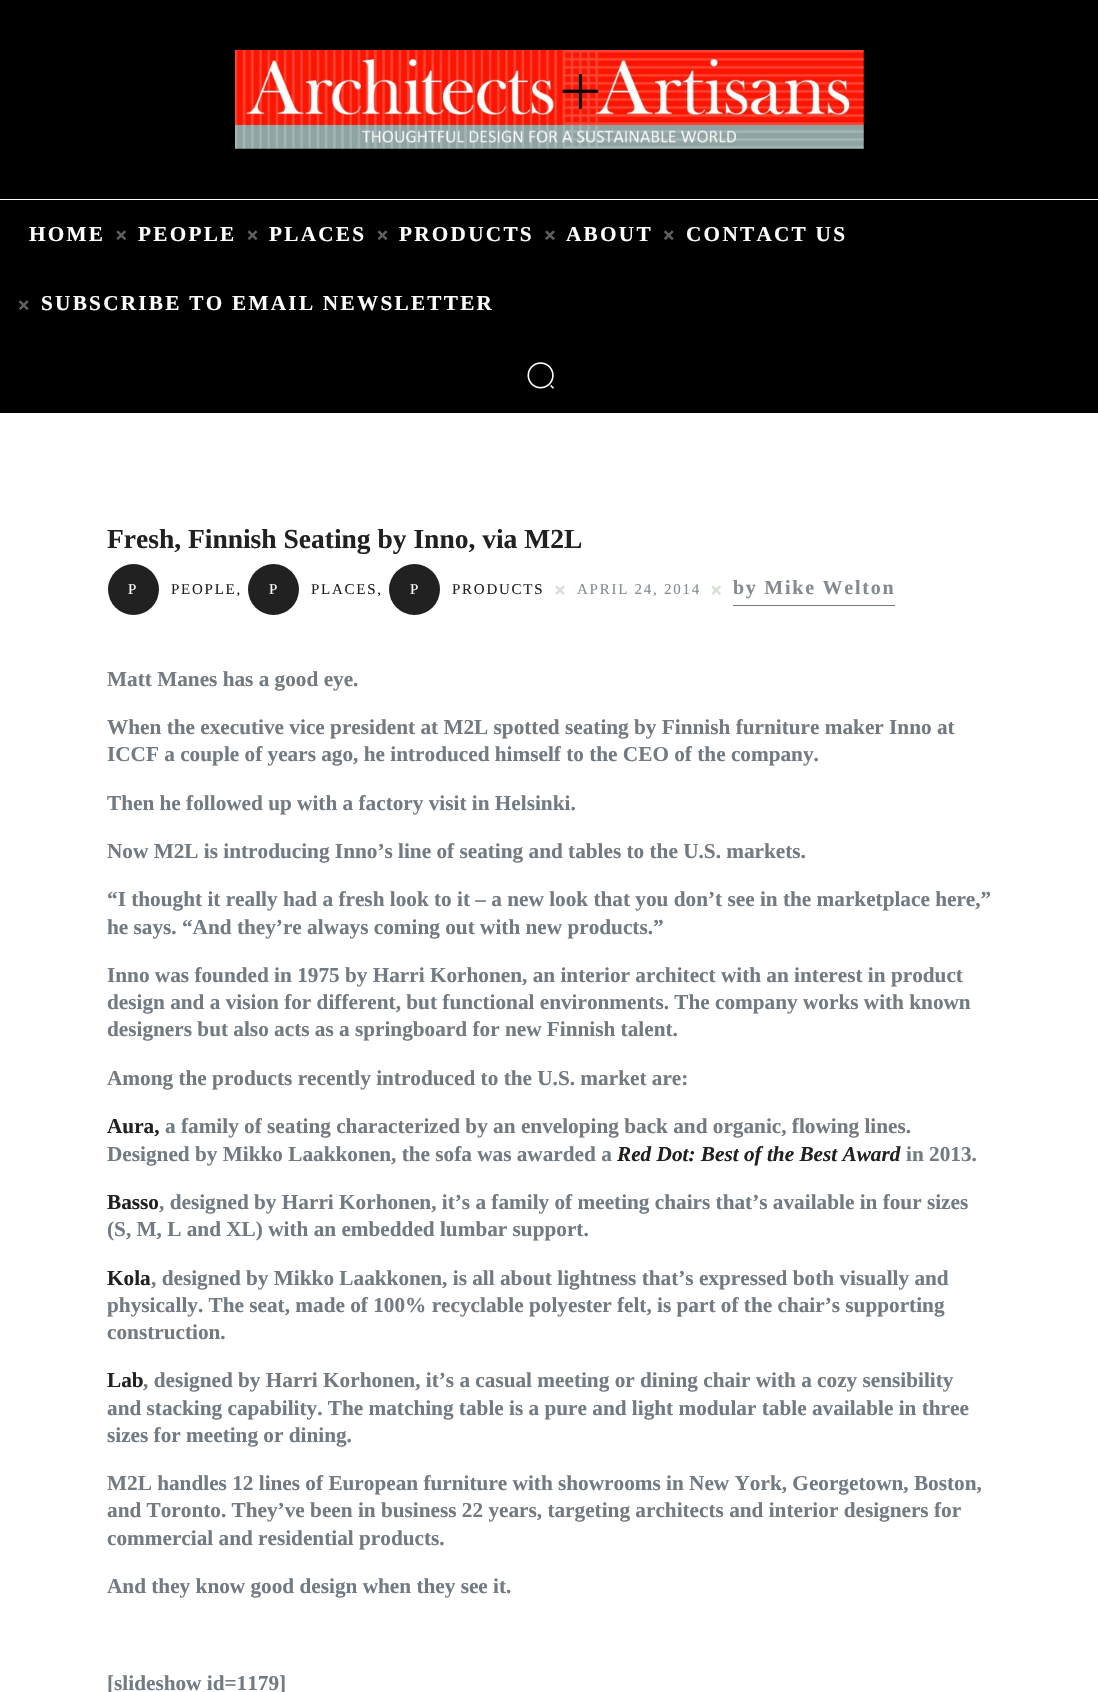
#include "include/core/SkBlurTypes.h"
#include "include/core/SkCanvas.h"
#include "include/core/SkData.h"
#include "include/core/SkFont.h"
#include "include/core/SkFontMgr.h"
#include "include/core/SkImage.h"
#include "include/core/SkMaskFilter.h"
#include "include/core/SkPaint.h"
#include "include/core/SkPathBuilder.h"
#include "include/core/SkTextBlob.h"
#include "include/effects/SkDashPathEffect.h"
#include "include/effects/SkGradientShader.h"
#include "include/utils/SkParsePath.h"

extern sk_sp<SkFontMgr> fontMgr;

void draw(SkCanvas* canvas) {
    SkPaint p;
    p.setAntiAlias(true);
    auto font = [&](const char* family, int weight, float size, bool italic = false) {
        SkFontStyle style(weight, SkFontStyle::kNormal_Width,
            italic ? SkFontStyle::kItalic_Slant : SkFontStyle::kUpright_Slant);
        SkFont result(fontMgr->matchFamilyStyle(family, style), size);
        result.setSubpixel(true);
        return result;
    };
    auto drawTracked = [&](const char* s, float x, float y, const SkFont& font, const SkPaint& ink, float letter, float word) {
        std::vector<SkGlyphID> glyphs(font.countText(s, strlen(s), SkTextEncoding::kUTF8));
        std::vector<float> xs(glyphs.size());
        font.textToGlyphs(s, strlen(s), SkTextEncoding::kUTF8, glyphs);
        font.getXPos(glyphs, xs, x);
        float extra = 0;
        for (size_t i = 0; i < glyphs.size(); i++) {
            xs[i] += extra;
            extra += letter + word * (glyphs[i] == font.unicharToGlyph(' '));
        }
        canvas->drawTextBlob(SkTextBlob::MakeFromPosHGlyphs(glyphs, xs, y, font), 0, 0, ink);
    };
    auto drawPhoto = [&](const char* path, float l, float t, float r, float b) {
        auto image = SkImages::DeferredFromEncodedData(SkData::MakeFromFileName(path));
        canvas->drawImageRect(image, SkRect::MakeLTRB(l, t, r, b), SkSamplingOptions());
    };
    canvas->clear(0xFFFFFFFF);
    p.setColor(0xFF000000);
    canvas->drawRect(SkRect::MakeLTRB(0, 0, 1098, 199), p);
    drawPhoto("media/1.png", 235, 50, 864, 149);
    canvas->drawRect(SkRect::MakeLTRB(0, 200, 1098, 413), p);
    auto font1 = font("Liberation Serif", 700, 21.25f);
    p.setColor(0xFFFFFFFF);
    drawTracked("HOME", 29, 241, font1, p, 2.25f, 0);
    drawPhoto("media/2.png", 116, 230, 127, 241);
    drawTracked("PEOPLE", 138, 241, font1, p, 2.25f, 0);
    drawPhoto("media/3.png", 247, 230, 258, 241);
    drawTracked("PLACES", 269, 241, font1, p, 2.25f, 0);
    drawPhoto("media/3.png", 377, 230, 388, 241);
    drawTracked("PRODUCTS", 399, 241, font1, p, 2.25f, 0);
    drawPhoto("media/4.png", 545, 230, 555, 241);
    drawTracked("ABOUT", 566, 241, font1, p, 2.25f, 0);
    drawPhoto("media/5.png", 663, 230, 674, 240);
    drawTracked("CONTACT US", 686, 241, font1, p, 2.25f, 0);
    drawPhoto("media/5.png", 18, 300, 29, 310);
    drawTracked("SUBSCRIBE TO EMAIL NEWSLETTER", 41, 310, font1, p, 2.25f, 0);
    drawPhoto("media/6.png", 527, 362, 554, 389);
    auto font2 = font("Liberation Serif", 700, 27.5f);
    p.setColor(0xFF212121);
    canvas->drawString("Fresh, Finnish Seating by Inno, via M2L", 107, 548, font2, p);
    canvas->drawCircle(133.5f, 589.5f, 25.5f, p);
    auto font3 = font("Liberation Serif", 400, 15);
    p.setColor(0xFFFFFFFF);
    canvas->drawString("P", 128, 594, font3, p);
    p.setColor(0xFF212121);
    drawTracked("PEOPLE,", 171, 594, font3, p, 1.75f, 0);
    canvas->drawCircle(273.5f, 589.5f, 25.5f, p);
    p.setColor(0xFFFFFFFF);
    canvas->drawString("P", 269, 594, font3, p);
    p.setColor(0xFF212121);
    drawTracked("PLACES,", 311, 594, font3, p, 1.75f, 0);
    canvas->drawCircle(414.5f, 589.5f, 25.5f, p);
    p.setColor(0xFFFFFFFF);
    canvas->drawString("P", 410, 594, font3, p);
    p.setColor(0xFF212121);
    drawTracked("PRODUCTS", 452, 594, font3, p, 1.75f, 0);
    drawPhoto("media/7.png", 555, 585, 565, 595);
    p.setColor(0xFF838B90);
    drawTracked("APRIL 24, 2014", 577, 594, font3, p, 1.75f, 0);
    drawPhoto("media/8.png", 711, 585, 721, 595);
    auto font4 = font("Liberation Serif", 700, 20);
    drawTracked("by Mike Welton", 733, 594, font4, p, 1.75f, 0);
    p.setColor(0xFF727B81);
    canvas->drawRect(SkRect::MakeLTRB(733, 605, 895, 606), p);
    {
        const struct { const char* s; float x, y; } items[] = {
            {"Matt Manes has a good eye.", 107, 686},
            {"When the executive vice president at M2L spotted seating by Finnish furniture maker Inno at", 107, 734},
            {"ICCF a couple of years ago, he introduced himself to the CEO of the company.", 107, 761},
            {"Then he followed up with a factory visit in Helsinki.", 107, 810},
            {"Now M2L is introducing Inno’s line of seating and tables to the U.S. markets.", 107, 858},
            {"“I thought it really had a fresh look to it – a new look that you don’t see in the marketplace here,”", 107, 906},
            {"he says. “And they’re always coming out with new products.”", 107, 934},
            {"Inno was founded in 1975 by Harri Korhonen, an interior architect with an interest in product", 107, 982},
            {"design and a vision for different, but functional environments. The company works with known", 107, 1009},
            {"designers but also acts as a springboard for new Finnish talent.", 107, 1036},
            {"Among the products recently introduced to the U.S. market are:", 107, 1085},
        };
        for (auto [s, x, y] : items) {
            canvas->drawString(s, x, y, font1, p);
        }
    }
    p.setColor(0xFF212121);
    canvas->drawString("Aura,", 107, 1133, font1, p);
    p.setColor(0xFF727B81);
    canvas->drawString("a family of seating characterized by an enveloping back and organic, flowing lines.", 165, 1133, font1, p);
    canvas->drawString("Designed by Mikko Laakkonen, the sofa was awarded a", 107, 1161, font1, p);
    auto font5 = font("Liberation Serif", 700, 21.25f, true);
    p.setColor(0xFF212121);
    canvas->drawString("Red Dot: Best of the Best Award", 617, 1161, font5, p);
    p.setColor(0xFF727B81);
    canvas->drawString("in 2013.", 906, 1161, font1, p);
    p.setColor(0xFF212121);
    canvas->drawString("Basso", 107, 1209, font1, p);
    p.setColor(0xFF727B81);
    canvas->drawString(", designed by Harri Korhonen, it’s a family of meeting chairs that’s available in four sizes", 159, 1209, font1, p);
    canvas->drawString("(S, M, L and XL) with an embedded lumbar support.", 107, 1236, font1, p);
    p.setColor(0xFF212121);
    canvas->drawString("Kola", 107, 1285, font1, p);
    p.setColor(0xFF727B81);
    {
        const struct { const char* s; float x, y; } items[] = {
            {", designed by Mikko Laakkonen, is all about lightness that’s expressed both visually and", 151, 1285},
            {"physically. The seat, made of 100% recyclable polyester felt, is part of the chair’s supporting", 107, 1312},
            {"construction.", 107, 1339},
        };
        for (auto [s, x, y] : items) {
            canvas->drawString(s, x, y, font1, p);
        }
    }
    p.setColor(0xFF212121);
    canvas->drawString("Lab", 107, 1387, font1, p);
    p.setColor(0xFF727B81);
    {
        const struct { const char* s; float x, y; } items[] = {
            {", designed by Harri Korhonen, it’s a casual meeting or dining chair with a cozy sensibility", 143, 1387},
            {"and stacking capability. The matching table is a pure and light modular table available in three", 107, 1415},
            {"sizes for meeting or dining.", 107, 1442},
            {"M2L handles 12 lines of European furniture with showrooms in New York, Georgetown, Boston,", 107, 1490},
            {"and Toronto. They’ve been in business 22 years, targeting architects and interior designers for", 107, 1517},
            {"commercial and residential products.", 107, 1545},
            {"And they know good design when they see it.", 107, 1593},
            {"[slideshow id=1179]", 107, 1690},
        };
        for (auto [s, x, y] : items) {
            canvas->drawString(s, x, y, font1, p);
        }
    }
}
